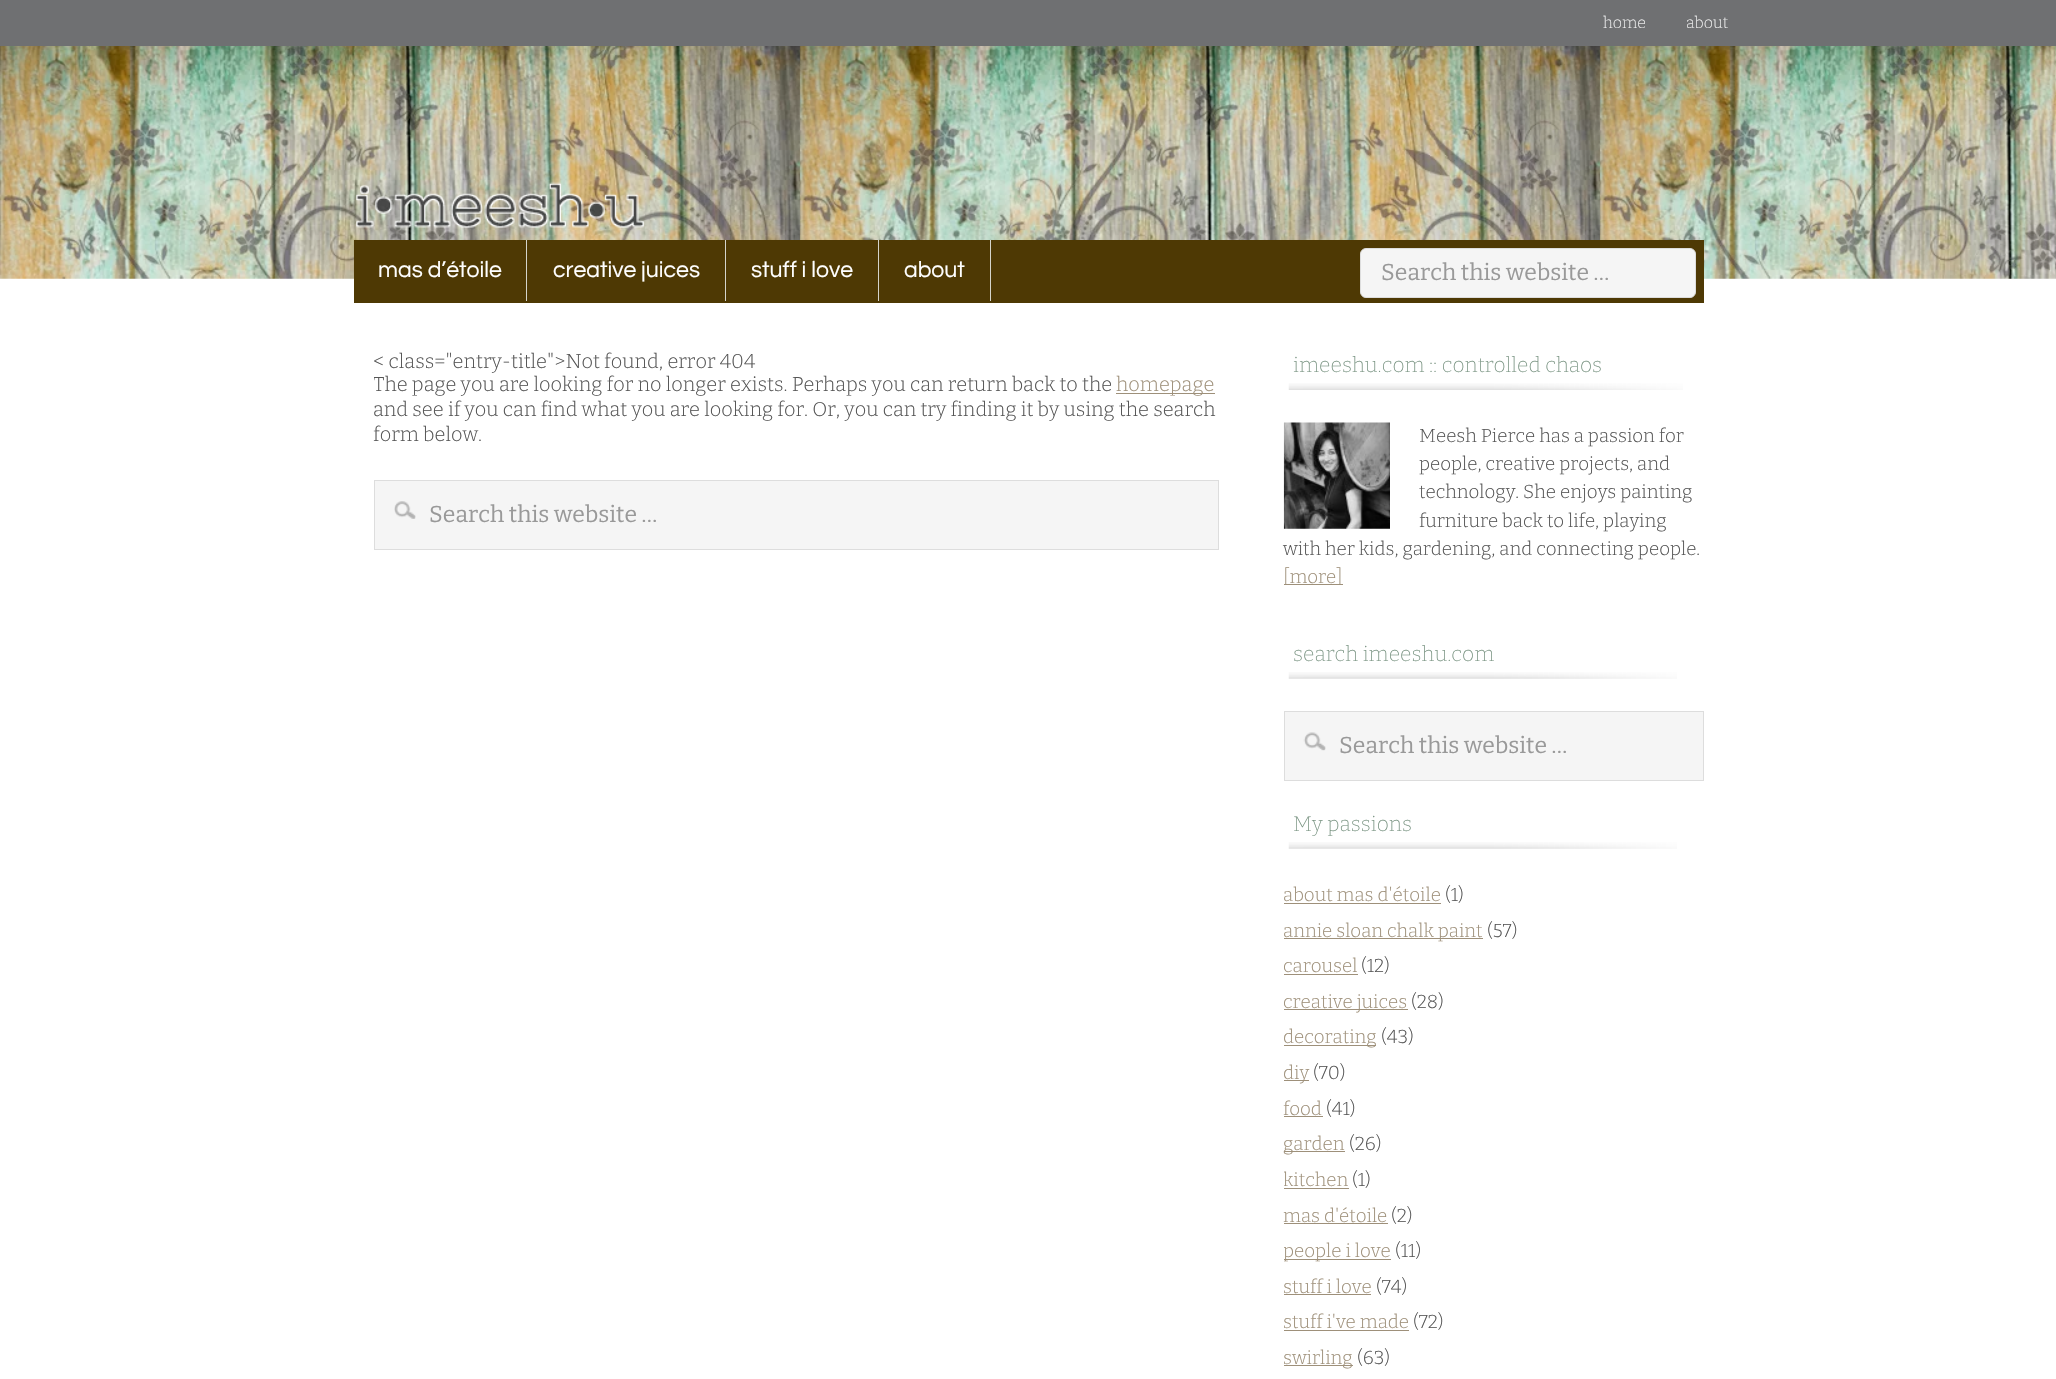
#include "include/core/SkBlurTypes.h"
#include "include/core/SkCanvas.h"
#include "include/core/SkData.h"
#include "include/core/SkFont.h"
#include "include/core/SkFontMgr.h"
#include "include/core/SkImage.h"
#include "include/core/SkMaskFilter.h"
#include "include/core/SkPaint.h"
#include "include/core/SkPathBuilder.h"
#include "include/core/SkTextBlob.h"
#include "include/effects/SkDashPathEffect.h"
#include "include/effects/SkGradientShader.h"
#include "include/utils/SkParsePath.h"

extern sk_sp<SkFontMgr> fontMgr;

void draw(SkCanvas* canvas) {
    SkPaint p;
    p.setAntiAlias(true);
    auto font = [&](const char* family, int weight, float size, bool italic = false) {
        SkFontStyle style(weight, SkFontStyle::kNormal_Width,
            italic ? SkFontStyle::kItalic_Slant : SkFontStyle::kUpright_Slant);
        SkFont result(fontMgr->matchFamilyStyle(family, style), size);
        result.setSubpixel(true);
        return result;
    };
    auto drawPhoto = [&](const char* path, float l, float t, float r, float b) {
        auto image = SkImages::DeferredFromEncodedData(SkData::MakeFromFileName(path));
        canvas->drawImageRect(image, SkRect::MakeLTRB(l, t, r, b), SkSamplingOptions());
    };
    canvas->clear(0xFFFFFFFF);
    drawPhoto("media/1.png", 0, 46, 2056, 279);
    p.setColor(0xFF6F7072);
    canvas->drawRect(SkRect::MakeLTRB(0, 0, 2056, 46), p);
    auto font1 = font("Bitter", 200, 16);
    p.setColor(0xFFFFFFFF);
    canvas->drawString("home", 1603, 28, font1, p);
    canvas->drawString("about", 1686, 28, font1, p);
    drawPhoto("media/2.png", 356, 182, 644, 228);
    p.setColor(0xFF4E3904);
    canvas->drawRect(SkRect::MakeLTRB(354, 240, 1704, 303), p);
    p.setColor(0xFFD4D4CC);
    canvas->drawRect(SkRect::MakeLTRB(526, 240, 527, 301), p);
    auto font2 = font("Questrial", 400, 23);
    p.setColor(0xFFFFFFFF);
    canvas->drawString("mas d’étoile", 378, 277, font2, p);
    p.setColor(0xFFD4D4CC);
    canvas->drawRect(SkRect::MakeLTRB(725, 240, 726, 301), p);
    p.setColor(0xFFFFFFFF);
    canvas->drawString("creative juices", 553, 277, font2, p);
    p.setColor(0xFFD4D4CC);
    canvas->drawRect(SkRect::MakeLTRB(878, 240, 879, 301), p);
    p.setColor(0xFFFFFFFF);
    canvas->drawString("stuff i love", 751, 277, font2, p);
    p.setColor(0xFFD4D4CC);
    canvas->drawRect(SkRect::MakeLTRB(990, 240, 991, 301), p);
    p.setColor(0xFFFFFFFF);
    canvas->drawString("about", 904, 277, font2, p);
    p.setColor(0xFFF5F5F5);
    canvas->drawRoundRect(SkRect::MakeLTRB(1360.5f, 248.5f, 1695.5f, 297.5f), 5.5f, 5.5f, p);
    p.setStyle(SkPaint::kStroke_Style);
    p.setStrokeWidth(1);
    p.setColor(0xFFDDDDDD);
    canvas->drawRoundRect(SkRect::MakeLTRB(1360.5f, 248.5f, 1695.5f, 297.5f), 5.5f, 5.5f, p);
    auto font3 = font("Bitter", 400, 23);
    p.setStyle(SkPaint::kFill_Style);
    p.setColor(0xFF999999);
    canvas->drawString("Search this website …", 1381, 280, font3, p);
    auto font4 = font("Bitter", 300, 20);
    p.setColor(0xFF555555);
    canvas->drawString("< class=\"entry-title\">Not found, error 404", 373, 368, font4, p);
    canvas->save();
    canvas->clipRect(SkRect::MakeLTRB(374, 373, 1219, 550));
    canvas->drawString("The page you are looking for no longer exists. Perhaps you can return back to the", 373, 391, font4, p);
    canvas->restore();
    p.setColor(0xFF9E907A);
    canvas->drawRect(SkRect::MakeLTRB(1116, 393, 1215, 394), p);
    canvas->drawString("homepage", 1116, 391, font4, p);
    p.setColor(0xFF555555);
    canvas->drawString("and see if you can find what you are looking for. Or, you can try finding it by using the search", 373, 416, font4, p);
    canvas->drawString("form below.", 373, 441, font4, p);
    p.setColor(0xFFF5F5F5);
    canvas->drawRect(SkRect::MakeLTRB(375, 481, 1218, 549), p);
    drawPhoto("media/3.png", 394, 501, 416, 519);
    p.setStyle(SkPaint::kStroke_Style);
    p.setColor(0xFFDDDDDD);
    canvas->drawRect(SkRect::MakeLTRB(374.5f, 480.5f, 1218.5f, 549.5f), p);
    p.setStyle(SkPaint::kFill_Style);
    p.setColor(0xFF999999);
    canvas->drawString("Search this website …", 429, 522, font3, p);
    drawPhoto("media/4.png", 1288, 383, 1683, 390);
    auto font5 = font("Bitter", 200, 21);
    p.setColor(0xFF779280);
    canvas->drawString("imeeshu.com :: controlled chaos", 1293, 372, font5, p);
    drawPhoto("media/5.png", 1283, 422, 1390, 529);
    auto font6 = font("Bitter", 300, 18.75f);
    p.setColor(0xFF555555);
    {
        const struct { const char* s; float x, y; } items[] = {
            {"Meesh Pierce has a passion for", 1419, 442},
            {"people, creative projects, and", 1419, 470},
            {"technology. She enjoys painting", 1419, 498},
            {"furniture back to life, playing", 1419, 527},
            {"with her kids, gardening, and connecting people.", 1283, 555},
        };
        for (auto [s, x, y] : items) {
            canvas->drawString(s, x, y, font6, p);
        }
    }
    p.setColor(0xFF9E907A);
    canvas->drawRect(SkRect::MakeLTRB(1284, 584, 1343, 585), p);
    canvas->drawString("[more]", 1283, 583, font6, p);
    drawPhoto("media/6.png", 1288, 672, 1677, 679);
    p.setColor(0xFF779280);
    canvas->drawString("search imeeshu.com", 1293, 661, font5, p);
    p.setColor(0xFFF5F5F5);
    canvas->drawRect(SkRect::MakeLTRB(1285, 712, 1703, 780), p);
    drawPhoto("media/7.png", 1303, 732, 1326, 751);
    p.setStyle(SkPaint::kStroke_Style);
    p.setColor(0xFFDDDDDD);
    canvas->drawRect(SkRect::MakeLTRB(1284.5f, 711.5f, 1703.5f, 780.5f), p);
    p.setStyle(SkPaint::kFill_Style);
    p.setColor(0xFF999999);
    canvas->drawString("Search this website …", 1339, 753, font3, p);
    drawPhoto("media/6.png", 1288, 842, 1677, 849);
    p.setColor(0xFF779280);
    canvas->drawString("My passions", 1293, 831, font5, p);
    p.setColor(0xFF9E907A);
    canvas->drawString("about mas d'étoile", 1283, 901, font6, p);
    canvas->drawRect(SkRect::MakeLTRB(1284, 903, 1441, 904), p);
    p.setColor(0xFF555555);
    canvas->drawString("(1)", 1445, 901, font6, p);
    p.setColor(0xFF9E907A);
    canvas->drawRect(SkRect::MakeLTRB(1284, 938, 1483, 939), p);
    canvas->drawString("annie sloan chalk paint", 1283, 937, font6, p);
    p.setColor(0xFF555555);
    canvas->drawString("(57)", 1487, 937, font6, p);
    p.setColor(0xFF9E907A);
    canvas->drawString("carousel", 1283, 972, font6, p);
    canvas->drawRect(SkRect::MakeLTRB(1284, 974, 1358, 975), p);
    p.setColor(0xFF555555);
    canvas->drawString("(12)", 1361, 972, font6, p);
    p.setColor(0xFF9E907A);
    canvas->drawRect(SkRect::MakeLTRB(1284, 1009, 1408, 1010), p);
    canvas->drawString("creative juices", 1283, 1008, font6, p);
    p.setColor(0xFF555555);
    canvas->drawString("(28)", 1411, 1008, font6, p);
    p.setColor(0xFF9E907A);
    canvas->drawRect(SkRect::MakeLTRB(1284, 1045, 1376, 1046), p);
    canvas->drawString("decorating", 1283, 1043, font6, p);
    p.setColor(0xFF555555);
    canvas->drawString("(43)", 1381, 1043, font6, p);
    p.setColor(0xFF9E907A);
    canvas->drawRect(SkRect::MakeLTRB(1284, 1080, 1309, 1081), p);
    canvas->drawString("diy", 1283, 1079, font6, p);
    p.setColor(0xFF555555);
    canvas->drawString("(70)", 1313, 1079, font6, p);
    p.setColor(0xFF9E907A);
    canvas->drawString("food", 1283, 1115, font6, p);
    canvas->drawRect(SkRect::MakeLTRB(1284, 1116, 1323, 1117), p);
    p.setColor(0xFF555555);
    canvas->drawString("(41)", 1326, 1115, font6, p);
    p.setColor(0xFF9E907A);
    canvas->drawRect(SkRect::MakeLTRB(1284, 1151, 1345, 1152), p);
    canvas->drawString("garden", 1283, 1150, font6, p);
    p.setColor(0xFF555555);
    canvas->drawString("(26)", 1349, 1150, font6, p);
    canvas->save();
    canvas->clipRect(SkRect::MakeLTRB(1284, 801, 1704, 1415));
    p.setColor(0xFF9E907A);
    canvas->drawString("kitchen", 1283, 1186, font6, p);
    canvas->restore();
    canvas->drawRect(SkRect::MakeLTRB(1284, 1188, 1349, 1189), p);
    p.setColor(0xFF555555);
    canvas->drawString("(1)", 1352, 1186, font6, p);
    p.setColor(0xFF9E907A);
    canvas->drawString("mas d'étoile", 1283, 1222, font6, p);
    canvas->drawRect(SkRect::MakeLTRB(1284, 1223, 1388, 1224), p);
    p.setColor(0xFF555555);
    canvas->drawString("(2)", 1391, 1222, font6, p);
    p.setColor(0xFF9E907A);
    canvas->drawRect(SkRect::MakeLTRB(1284, 1259, 1391, 1260), p);
    canvas->save();
    canvas->clipRect(SkRect::MakeLTRB(1284, 801, 1704, 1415));
    canvas->drawString("people i love", 1283, 1257, font6, p);
    canvas->restore();
    p.setColor(0xFF555555);
    canvas->drawString("(11)", 1395, 1257, font6, p);
    p.setColor(0xFF9E907A);
    canvas->drawString("stuff i love", 1283, 1293, font6, p);
    canvas->drawRect(SkRect::MakeLTRB(1284, 1294, 1371, 1295), p);
    p.setColor(0xFF555555);
    canvas->drawString("(74)", 1376, 1293, font6, p);
    p.setColor(0xFF9E907A);
    canvas->drawString("stuff i've made", 1283, 1328, font6, p);
    canvas->drawRect(SkRect::MakeLTRB(1284, 1330, 1409, 1331), p);
    p.setColor(0xFF555555);
    canvas->drawString("(72)", 1413, 1328, font6, p);
    p.setColor(0xFF9E907A);
    canvas->drawRect(SkRect::MakeLTRB(1284, 1365, 1353, 1366), p);
    canvas->drawString("swirling", 1283, 1364, font6, p);
    p.setColor(0xFF555555);
    canvas->drawString("(63)", 1357, 1364, font6, p);
}
